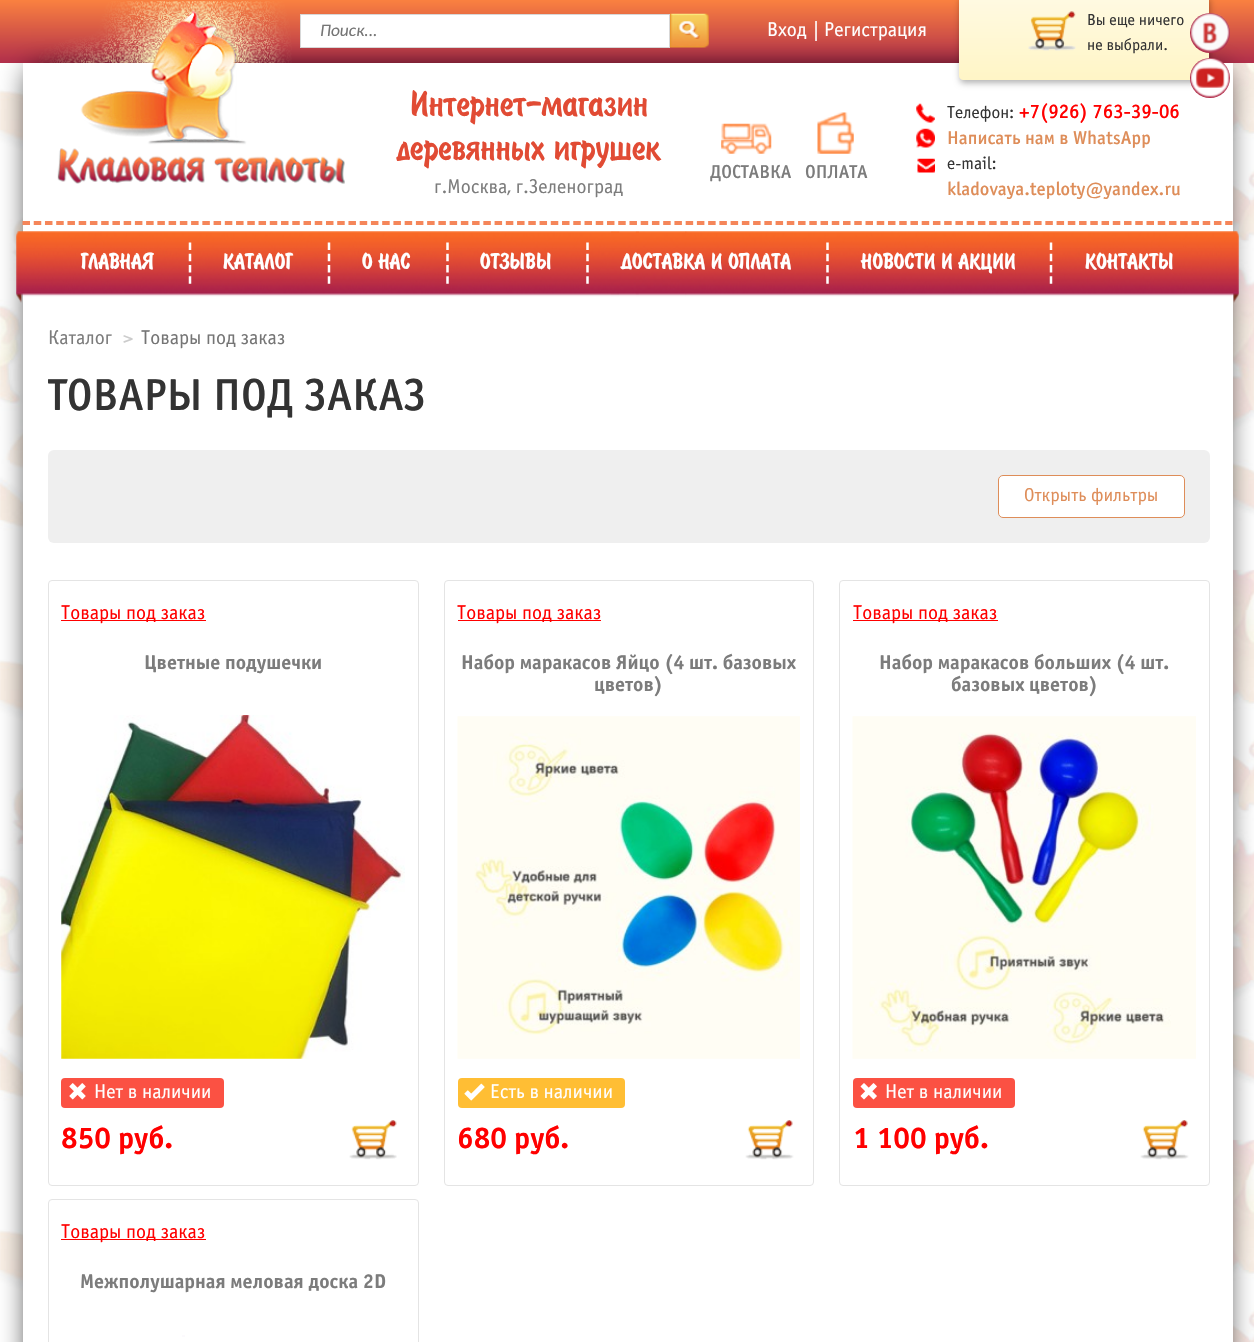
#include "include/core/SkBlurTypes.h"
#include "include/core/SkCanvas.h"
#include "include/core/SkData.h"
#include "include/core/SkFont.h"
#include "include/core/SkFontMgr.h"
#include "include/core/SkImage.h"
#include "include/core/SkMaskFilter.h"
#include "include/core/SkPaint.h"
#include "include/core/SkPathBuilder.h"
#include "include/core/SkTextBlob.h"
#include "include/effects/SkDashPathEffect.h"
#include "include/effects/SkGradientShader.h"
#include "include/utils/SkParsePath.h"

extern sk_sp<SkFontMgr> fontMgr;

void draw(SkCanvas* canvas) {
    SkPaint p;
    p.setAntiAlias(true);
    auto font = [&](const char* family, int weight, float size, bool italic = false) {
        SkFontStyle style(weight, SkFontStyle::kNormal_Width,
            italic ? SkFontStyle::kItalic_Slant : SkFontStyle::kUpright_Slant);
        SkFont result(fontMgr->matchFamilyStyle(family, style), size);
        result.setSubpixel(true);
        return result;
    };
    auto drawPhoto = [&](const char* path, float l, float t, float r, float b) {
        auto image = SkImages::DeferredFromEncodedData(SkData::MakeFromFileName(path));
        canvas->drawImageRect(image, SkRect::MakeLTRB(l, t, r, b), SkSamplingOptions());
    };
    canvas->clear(0xFFFFFFFF);
    drawPhoto("media/1.png", 0, 63, 1254, 1342);
    {
        const SkColor colors[] = {0xFFFA8140, 0xFFB22E4B};
        const float stops[] = {0, 1};
        const SkPoint ends[] = {{628, 0}, {628, 63}};
        p.setShader(SkGradientShader::MakeLinear(ends, colors, stops, 2, SkTileMode::kClamp));
        p.setAlpha(255);
    }
    canvas->drawRect(SkRect::MakeLTRB(0, 0, 1254, 63), p);
    p.setShader(nullptr);
    p.setColor(0xFF000000);
    p.setMaskFilter(SkMaskFilter::MakeBlur(kNormal_SkBlurStyle, 14));
    canvas->drawRect(SkRect::MakeLTRB(31, 71, 1224, 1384), p);
    p.setMaskFilter(nullptr);
    p.setColor(0xFFFFFFFF);
    canvas->drawRect(SkRect::MakeLTRB(300.5f, 14.5f, 669.5f, 47.5f), p);
    p.setStyle(SkPaint::kStroke_Style);
    p.setStrokeWidth(1);
    p.setColor(0xFFD7D7D7);
    canvas->drawRect(SkRect::MakeLTRB(300.5f, 14.5f, 669.5f, 47.5f), p);
    auto font1 = font("Carlito", 400, 17.5f, true);
    p.setStyle(SkPaint::kFill_Style);
    p.setColor(0xFF757575);
    canvas->drawString("Поиск...", 320, 36, font1, p);
    drawPhoto("media/2.png", 670, 13, 709, 48);
    auto font2 = font("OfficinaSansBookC", 400, 20);
    p.setColor(0xFFFFFFFF);
    {
        const struct { const char* s; float x, y; } items[] = {
            {"Вход", 767, 36},
            {"|", 813, 36},
            {"Регистрация", 824, 36},
        };
        for (auto [s, x, y] : items) {
            canvas->drawString(s, x, y, font2, p);
        }
    }
    canvas->drawRect(SkRect::MakeLTRB(23, 63, 1233, 1342), p);
    p.setColor(0x4D000000);
    p.setMaskFilter(SkMaskFilter::MakeBlur(kNormal_SkBlurStyle, 3));
    canvas->drawRoundRect(SkRect::MakeLTRB(960, -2, 1210, 83), 4, 4, p);
    p.setMaskFilter(nullptr);
    {
        const SkColor colors[] = {0xFFFFFAE3, 0xFFFFF5C6};
        const float stops[] = {0, 1};
        const SkPoint ends[] = {{1084, -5}, {1084, 80}};
        p.setShader(SkGradientShader::MakeLinear(ends, colors, stops, 2, SkTileMode::kClamp));
        p.setAlpha(255);
    }
    canvas->drawPath(SkPathBuilder().moveTo(959, -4).lineTo(1209, -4).lineTo(1209, 76).cubicTo(1209, 78, 1207, 80, 1205, 80).lineTo(963, 80).cubicTo(961, 80, 959, 78, 959, 76).close().detach(), p);
    drawPhoto("media/3.png", 1028, 11, 1076, 51);
    auto font3 = font("OfficinaSansBookC", 400, 16);
    p.setShader(nullptr);
    p.setColor(0xFF333333);
    canvas->drawString("Вы еще ничего", 1087, 25, font3, p);
    canvas->drawString("не выбрали.", 1087, 50, font3, p);
    p.setColor(0xFFB22E4B);
    canvas->drawCircle(1210, 33, 20, p);
    drawPhoto("media/4.png", 1191, 13, 1230, 52);
    canvas->drawCircle(1210, 78, 20, p);
    drawPhoto("media/5.png", 1191, 58, 1230, 97);
    drawPhoto("media/6.png", 39, 1, 345, 184);
    auto font4 = font("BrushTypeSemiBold", 600, 40);
    p.setColor(0xFFE14B34);
    canvas->drawString("Интернет-магазин", 410, 116, font4, p);
    canvas->drawString("деревянных игрушек", 397, 160, font4, p);
    p.setColor(0xFF7C7C7C);
    canvas->drawString("г.Москва, г.Зеленоград", 434, 193, font2, p);
    drawPhoto("media/7.png", 721, 123, 772, 154);
    auto font5 = font("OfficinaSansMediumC", 500, 18.75f);
    canvas->drawString("ДОСТАВКА", 710, 178, font5, p);
    drawPhoto("media/8.png", 817, 112, 854, 154);
    canvas->drawString("ОПЛАТА", 805, 178, font5, p);
    drawPhoto("media/9.png", 916, 103, 935, 123);
    auto font6 = font("OfficinaSansBookC", 400, 17.5f);
    p.setColor(0xFF333333);
    canvas->drawString("Телефон:", 947, 118, font6, p);
    auto font7 = font("OfficinaSansMediumC", 500, 20);
    p.setColor(0xFFFF0000);
    canvas->drawString("+7(926) 763-39-06", 1019, 118, font7, p);
    drawPhoto("media/10.png", 916, 128, 935, 148);
    p.setColor(0xFFDE8D59);
    canvas->drawString("Написать нам в WhatsApp", 947, 144, font5, p);
    drawPhoto("media/11.png", 917, 158, 935, 173);
    p.setColor(0xFF333333);
    canvas->drawString("e-mail:", 947, 169, font6, p);
    p.setColor(0xFFDE8D59);
    canvas->drawString("kladovaya.teploty@yandex.ru", 947, 195, font5, p);
    p.setStyle(SkPaint::kStroke_Style);
    p.setStrokeWidth(3.8f);
    p.setColor(0xFFF5865A);
    p.setPathEffect(SkDashPathEffect::Make({{7.5f, 3.74f}}, 0));
    canvas->drawPath(SkPathBuilder().moveTo(22.5f, 223).lineTo(1232.5f, 223).detach(), p);
    p.setPathEffect(nullptr);
    drawPhoto("media/12.png", 16, 231, 1239, 303);
    auto font8 = font("BrushTypeSemiBold", 600, 25);
    p.setStyle(SkPaint::kFill_Style);
    p.setColor(0xFFFFFFFF);
    canvas->drawString("ГЛАВНАЯ", 81, 269, font8, p);
    p.setStyle(SkPaint::kStroke_Style);
    p.setStrokeWidth(2.5f);
    p.setPathEffect(SkDashPathEffect::Make({{7.5f, 3.75f}}, 0));
    canvas->drawPath(SkPathBuilder().moveTo(190, 242.5f).lineTo(190, 284).detach(), p);
    p.setPathEffect(nullptr);
    p.setStyle(SkPaint::kFill_Style);
    canvas->drawString("КАТАЛОГ", 223, 269, font8, p);
    p.setStyle(SkPaint::kStroke_Style);
    p.setPathEffect(SkDashPathEffect::Make({{7.5f, 3.75f}}, 0));
    canvas->drawPath(SkPathBuilder().moveTo(329, 242.5f).lineTo(329, 284).detach(), p);
    p.setPathEffect(nullptr);
    p.setStyle(SkPaint::kFill_Style);
    canvas->drawString("О НАС", 362, 269, font8, p);
    p.setStyle(SkPaint::kStroke_Style);
    p.setPathEffect(SkDashPathEffect::Make({{7.5f, 3.75f}}, 0));
    canvas->drawPath(SkPathBuilder().moveTo(447.5f, 242.5f).lineTo(447.5f, 284).detach(), p);
    p.setPathEffect(nullptr);
    p.setStyle(SkPaint::kFill_Style);
    canvas->drawString("ОТЗЫВЫ", 480, 269, font8, p);
    p.setStyle(SkPaint::kStroke_Style);
    p.setPathEffect(SkDashPathEffect::Make({{7.5f, 3.75f}}, 0));
    canvas->drawPath(SkPathBuilder().moveTo(587.5f, 242.5f).lineTo(587.5f, 284).detach(), p);
    p.setPathEffect(nullptr);
    p.setStyle(SkPaint::kFill_Style);
    canvas->drawString("ДОСТАВКА И ОПЛАТА", 621, 269, font8, p);
    p.setStyle(SkPaint::kStroke_Style);
    p.setPathEffect(SkDashPathEffect::Make({{7.5f, 3.75f}}, 0));
    canvas->drawPath(SkPathBuilder().moveTo(827.5f, 242.5f).lineTo(827.5f, 284).detach(), p);
    p.setPathEffect(nullptr);
    p.setStyle(SkPaint::kFill_Style);
    canvas->drawString("НОВОСТИ И АКЦИИ", 861, 269, font8, p);
    p.setStyle(SkPaint::kStroke_Style);
    p.setPathEffect(SkDashPathEffect::Make({{7.5f, 3.75f}}, 0));
    canvas->drawPath(SkPathBuilder().moveTo(1051, 242.5f).lineTo(1051, 284).detach(), p);
    p.setPathEffect(nullptr);
    p.setStyle(SkPaint::kFill_Style);
    canvas->drawString("КОНТАКТЫ", 1085, 269, font8, p);
    p.setColor(0xFF7C7C7C);
    canvas->drawString("Каталог", 48, 344, font2, p);
    p.setColor(0xFFCCCCCC);
    canvas->drawString(">", 123, 344, font2, p);
    p.setColor(0xFF757575);
    canvas->drawString("Товары под заказ", 141, 344, font2, p);
    auto font9 = font("OfficinaSansMediumC", 500, 45);
    p.setColor(0xFF333333);
    canvas->drawString("ТОВАРЫ ПОД ЗАКАЗ", 48, 410, font9, p);
    p.setColor(0xFFEFEFEF);
    canvas->drawRoundRect(SkRect::MakeLTRB(48, 450, 1210, 543), 6, 6, p);
    p.setColor(0xFFFFFFFF);
    canvas->drawRoundRect(SkRect::MakeLTRB(998.5f, 475.5f, 1184.5f, 517.5f), 4.5f, 4.5f, p);
    p.setStyle(SkPaint::kStroke_Style);
    p.setStrokeWidth(1);
    p.setColor(0xFFDE8D59);
    canvas->drawRoundRect(SkRect::MakeLTRB(998.5f, 475.5f, 1184.5f, 517.5f), 4.5f, 4.5f, p);
    auto font10 = font("OfficinaSansBookC", 400, 18.75f);
    p.setStyle(SkPaint::kFill_Style);
    canvas->drawString("Открыть фильтры", 1024, 501, font10, p);
    p.setStyle(SkPaint::kStroke_Style);
    p.setColor(0xFFE4E4E4);
    canvas->drawRoundRect(SkRect::MakeLTRB(48.5f, 580.5f, 418.5f, 1185.5f), 3.5f, 3.5f, p);
    p.setStyle(SkPaint::kFill_Style);
    p.setColor(0xFFFF0000);
    canvas->drawRect(SkRect::MakeLTRB(61, 620, 206, 621), p);
    canvas->drawString("Товары под заказ", 61, 619, font2, p);
    auto font11 = font("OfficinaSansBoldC", 700, 20);
    p.setColor(0xFF7C7C7C);
    canvas->drawString("Цветные подушечки", 144, 669, font11, p);
    drawPhoto("media/13.png", 61, 715, 405, 1059);
    p.setColor(0xFFFB5143);
    canvas->drawRoundRect(SkRect::MakeLTRB(61, 1078, 224, 1108), 4, 4, p);
    drawPhoto("media/14.png", 69, 1083, 86, 1100);
    p.setColor(0xFFFFFFFF);
    canvas->drawString("Нет в наличии", 94, 1098, font2, p);
    auto font12 = font("OfficinaSansBoldC", 700, 30);
    p.setColor(0xFFFF0000);
    canvas->drawString("850 руб.", 61, 1148, font12, p);
    drawPhoto("media/15.png", 349, 1120, 397, 1160);
    p.setStyle(SkPaint::kStroke_Style);
    p.setColor(0xFFE4E4E4);
    canvas->drawRoundRect(SkRect::MakeLTRB(444.5f, 580.5f, 813.5f, 1185.5f), 3.5f, 3.5f, p);
    p.setStyle(SkPaint::kFill_Style);
    p.setColor(0xFFFF0000);
    canvas->drawRect(SkRect::MakeLTRB(458, 620, 601, 621), p);
    canvas->drawString("Товары под заказ", 457, 619, font2, p);
    p.setColor(0xFF7C7C7C);
    canvas->drawString("Набор маракасов Яйцо (4 шт. базовых", 461, 669, font11, p);
    canvas->drawString("цветов)", 594, 691, font11, p);
    drawPhoto("media/16.png", 457, 716, 800, 1059);
    p.setColor(0xFFFFBE34);
    canvas->drawRoundRect(SkRect::MakeLTRB(458, 1078, 625, 1108), 4, 4, p);
    drawPhoto("media/17.png", 464, 1083, 485, 1101);
    p.setColor(0xFFFFFFFF);
    canvas->drawString("Есть в наличии", 490, 1098, font2, p);
    p.setColor(0xFFFF0000);
    canvas->drawString("680 руб.", 457, 1148, font12, p);
    drawPhoto("media/18.png", 745, 1120, 794, 1160);
    p.setStyle(SkPaint::kStroke_Style);
    p.setColor(0xFFE4E4E4);
    canvas->drawRoundRect(SkRect::MakeLTRB(839.5f, 580.5f, 1209.5f, 1185.5f), 3.5f, 3.5f, p);
    p.setStyle(SkPaint::kFill_Style);
    p.setColor(0xFFFF0000);
    canvas->drawRect(SkRect::MakeLTRB(853, 620, 998, 621), p);
    canvas->drawString("Товары под заказ", 853, 619, font2, p);
    p.setColor(0xFF7C7C7C);
    canvas->drawString("Набор маракасов больших (4 шт.", 879, 669, font11, p);
    canvas->drawString("базовых цветов)", 951, 691, font11, p);
    drawPhoto("media/19.png", 852, 716, 1196, 1059);
    p.setColor(0xFFFB5143);
    canvas->drawRoundRect(SkRect::MakeLTRB(853, 1078, 1015, 1108), 4, 4, p);
    drawPhoto("media/20.png", 860, 1083, 877, 1100);
    p.setColor(0xFFFFFFFF);
    canvas->drawString("Нет в наличии", 885, 1098, font2, p);
    p.setColor(0xFFFF0000);
    canvas->drawString("1 100 руб.", 853, 1148, font12, p);
    drawPhoto("media/21.png", 1140, 1120, 1189, 1160);
    p.setStyle(SkPaint::kStroke_Style);
    p.setColor(0xFFE4E4E4);
    canvas->drawRoundRect(SkRect::MakeLTRB(48.5f, 1199.5f, 418.5f, 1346.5f), 3.5f, 3.5f, p);
    p.setStyle(SkPaint::kFill_Style);
    p.setColor(0xFFFF0000);
    canvas->drawRect(SkRect::MakeLTRB(61, 1239, 206, 1240), p);
    canvas->drawString("Товары под заказ", 61, 1238, font2, p);
    p.setColor(0xFF7C7C7C);
    canvas->drawString("Межполушарная меловая доска 2D", 80, 1288, font11, p);
    p.setColor(0xFFFCFAFD);
    canvas->drawRect(SkRect::MakeLTRB(182, 1335, 185, 1337), p);
}
